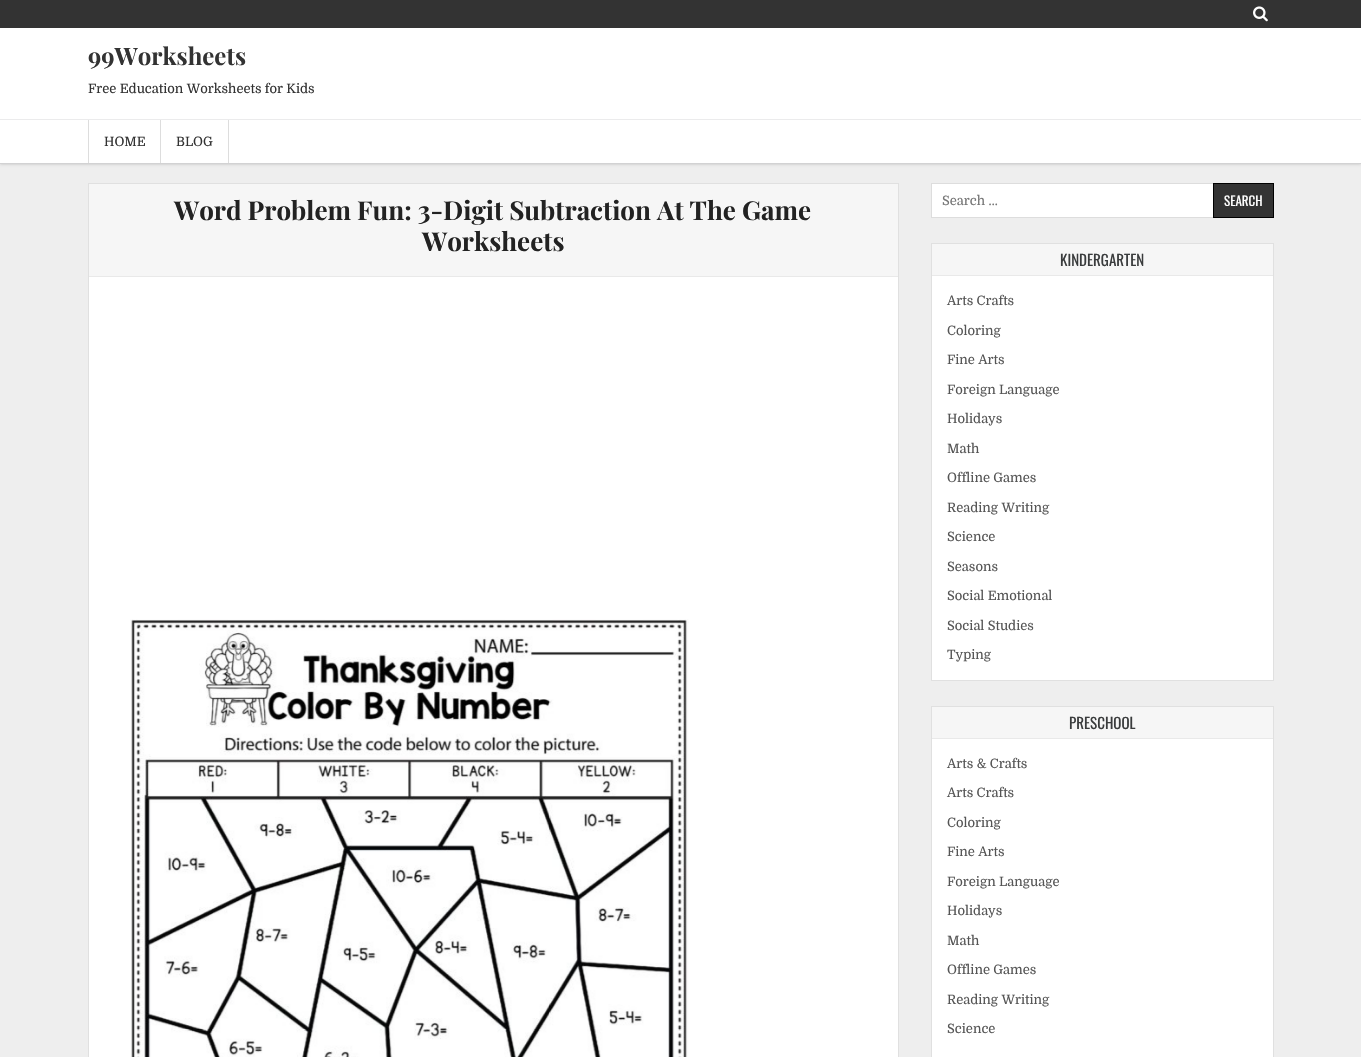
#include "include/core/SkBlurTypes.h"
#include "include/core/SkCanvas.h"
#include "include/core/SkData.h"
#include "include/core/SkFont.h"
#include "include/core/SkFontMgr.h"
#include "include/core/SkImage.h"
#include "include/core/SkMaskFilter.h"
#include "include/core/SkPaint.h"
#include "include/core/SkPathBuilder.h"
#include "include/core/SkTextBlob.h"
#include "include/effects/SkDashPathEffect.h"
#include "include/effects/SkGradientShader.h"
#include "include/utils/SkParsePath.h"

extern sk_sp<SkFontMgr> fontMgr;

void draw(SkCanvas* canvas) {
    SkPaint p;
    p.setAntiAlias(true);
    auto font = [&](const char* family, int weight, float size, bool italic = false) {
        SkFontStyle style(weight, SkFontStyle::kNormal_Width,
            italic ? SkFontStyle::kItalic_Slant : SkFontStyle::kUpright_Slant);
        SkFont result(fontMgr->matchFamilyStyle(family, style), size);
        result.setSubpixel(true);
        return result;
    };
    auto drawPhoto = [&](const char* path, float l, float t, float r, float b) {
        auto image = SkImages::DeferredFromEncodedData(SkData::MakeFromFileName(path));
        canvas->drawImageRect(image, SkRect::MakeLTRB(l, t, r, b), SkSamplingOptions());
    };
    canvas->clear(0xFFEEEEEE);
    p.setColor(0xFF333333);
    canvas->drawRect(SkRect::MakeLTRB(0, 0, 1361, 28), p);
    drawPhoto("media/1.png", 1253, 6, 1268, 22);
    p.setColor(0x33000000);
    p.setMaskFilter(SkMaskFilter::MakeBlur(kNormal_SkBlurStyle, 1.5f));
    canvas->drawRect(SkRect::MakeLTRB(0, 121, 1361, 164), p);
    p.setMaskFilter(nullptr);
    p.setColor(0xFFFFFFFF);
    canvas->drawRect(SkRect::MakeLTRB(0, 28, 1361, 119), p);
    p.setColor(0xFFEBEBEC);
    canvas->drawRect(SkRect::MakeLTRB(0, 119, 1361, 120), p);
    auto font1 = font("Playfair Display", 700, 24);
    p.setColor(0xFF333333);
    canvas->drawString("99Worksheets", 88, 65, font1, p);
    auto font2 = font("Domine", 400, 13);
    canvas->drawString("Free Education Worksheets for Kids", 88, 93, font2, p);
    {
        const struct { float l, t, r, b; SkColor color; } items[] = {
            {0, 163, 1361, 164, 0xFFD2D2D3},
            {0, 120, 1361, 163, 0xFFFFFFFF},
            {160, 120, 161, 163, 0xFFDDDDDD},
            {88, 120, 89, 163, 0xFFDDDDDD},
        };
        for (auto [l, t, r, b, color] : items) {
            p.setColor(color);
            canvas->drawRect(SkRect::MakeLTRB(l, t, r, b), p);
        }
    }
    p.setColor(0xFF333333);
    canvas->drawString("HOME", 104, 146, font2, p);
    p.setColor(0xFFDDDDDD);
    canvas->drawRect(SkRect::MakeLTRB(228, 120, 229, 163), p);
    p.setColor(0xFF333333);
    canvas->drawString("BLOG", 176, 146, font2, p);
    p.setColor(0xFFFFFFFF);
    canvas->drawRect(SkRect::MakeLTRB(89, 277, 898, 1057), p);
    p.setStyle(SkPaint::kStroke_Style);
    p.setStrokeWidth(1);
    p.setColor(0xFFE0E0E0);
    canvas->drawRect(SkRect::MakeLTRB(88.5f, 183.5f, 898.5f, 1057.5f), p);
    p.setStyle(SkPaint::kFill_Style);
    p.setColor(0xFFF6F6F6);
    canvas->drawRect(SkRect::MakeLTRB(89, 184, 898, 276), p);
    p.setColor(0xFFE9E9E9);
    canvas->drawRect(SkRect::MakeLTRB(89, 276, 898, 277), p);
    auto font3 = font("Playfair Display", 700, 26);
    p.setColor(0xFF222222);
    canvas->drawString("Word Problem Fun: 3-Digit Subtraction At The Game", 174, 220, font3, p);
    canvas->drawString("Worksheets", 422, 251, font3, p);
    drawPhoto("media/2.png", 130, 619, 689, 1057);
    p.setColor(0xFFFFFFFF);
    canvas->drawRect(SkRect::MakeLTRB(932, 184, 1213, 217), p);
    p.setStyle(SkPaint::kStroke_Style);
    p.setColor(0xFFDDDDDD);
    canvas->drawRect(SkRect::MakeLTRB(931.5f, 183.5f, 1273.5f, 217.5f), p);
    p.setStyle(SkPaint::kFill_Style);
    p.setColor(0xFF757575);
    canvas->drawString("Search …", 942, 205, font2, p);
    p.setColor(0xFF333333);
    canvas->drawRect(SkRect::MakeLTRB(1213.5f, 183.5f, 1273.5f, 217.5f), p);
    p.setStyle(SkPaint::kStroke_Style);
    p.setColor(0xFF000000);
    canvas->drawRect(SkRect::MakeLTRB(1213.5f, 183.5f, 1273.5f, 217.5f), p);
    auto font4 = font("Oswald", 400, 13);
    p.setStyle(SkPaint::kFill_Style);
    p.setColor(0xFFFFFFFF);
    canvas->drawString("SEARCH", 1224, 206, font4, p);
    canvas->drawRect(SkRect::MakeLTRB(932, 276, 1273, 680), p);
    p.setStyle(SkPaint::kStroke_Style);
    p.setColor(0xFFE0E0E0);
    canvas->drawRect(SkRect::MakeLTRB(931.5f, 243.5f, 1273.5f, 680.5f), p);
    p.setStyle(SkPaint::kFill_Style);
    p.setColor(0xFFF6F6F6);
    canvas->drawRect(SkRect::MakeLTRB(932, 244, 1273, 275), p);
    p.setColor(0xFFE9E9E9);
    canvas->drawRect(SkRect::MakeLTRB(932, 275, 1273, 276), p);
    auto font5 = font("Oswald", 400, 15);
    p.setColor(0xFF3A3C3D);
    canvas->drawString("KINDERGARTEN", 1060, 266, font5, p);
    p.setColor(0xFF555555);
    {
        const struct { const char* s; float x, y; } items[] = {
            {"Arts Crafts", 947, 305},
            {"Coloring", 947, 335},
            {"Fine Arts", 947, 364},
            {"Foreign Language", 947, 394},
            {"Holidays", 947, 423},
            {"Math", 947, 453},
            {"Offline Games", 947, 482},
            {"Reading Writing", 947, 512},
            {"Science", 947, 541},
            {"Seasons", 947, 571},
            {"Social Emotional", 947, 600},
            {"Social Studies", 947, 630},
            {"Typing", 947, 659},
        };
        for (auto [s, x, y] : items) {
            canvas->drawString(s, x, y, font2, p);
        }
    }
    p.setColor(0xFFFFFFFF);
    canvas->drawRect(SkRect::MakeLTRB(932, 739, 1273, 1057), p);
    p.setStyle(SkPaint::kStroke_Style);
    p.setColor(0xFFE0E0E0);
    canvas->drawRect(SkRect::MakeLTRB(931.5f, 706.5f, 1273.5f, 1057.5f), p);
    p.setStyle(SkPaint::kFill_Style);
    p.setColor(0xFFF6F6F6);
    canvas->drawRect(SkRect::MakeLTRB(932, 707, 1273, 738), p);
    p.setColor(0xFFE9E9E9);
    canvas->drawRect(SkRect::MakeLTRB(932, 738, 1273, 739), p);
    p.setColor(0xFF3A3C3D);
    canvas->drawString("PRESCHOOL", 1069, 729, font5, p);
    p.setColor(0xFF555555);
    {
        const struct { const char* s; float x, y; } items[] = {
            {"Arts & Crafts", 947, 768},
            {"Arts Crafts", 947, 797},
            {"Coloring", 947, 827},
            {"Fine Arts", 947, 856},
            {"Foreign Language", 947, 886},
            {"Holidays", 947, 915},
            {"Math", 947, 945},
            {"Offline Games", 947, 974},
            {"Reading Writing", 947, 1004},
            {"Science", 947, 1033},
        };
        for (auto [s, x, y] : items) {
            canvas->drawString(s, x, y, font2, p);
        }
    }
}
